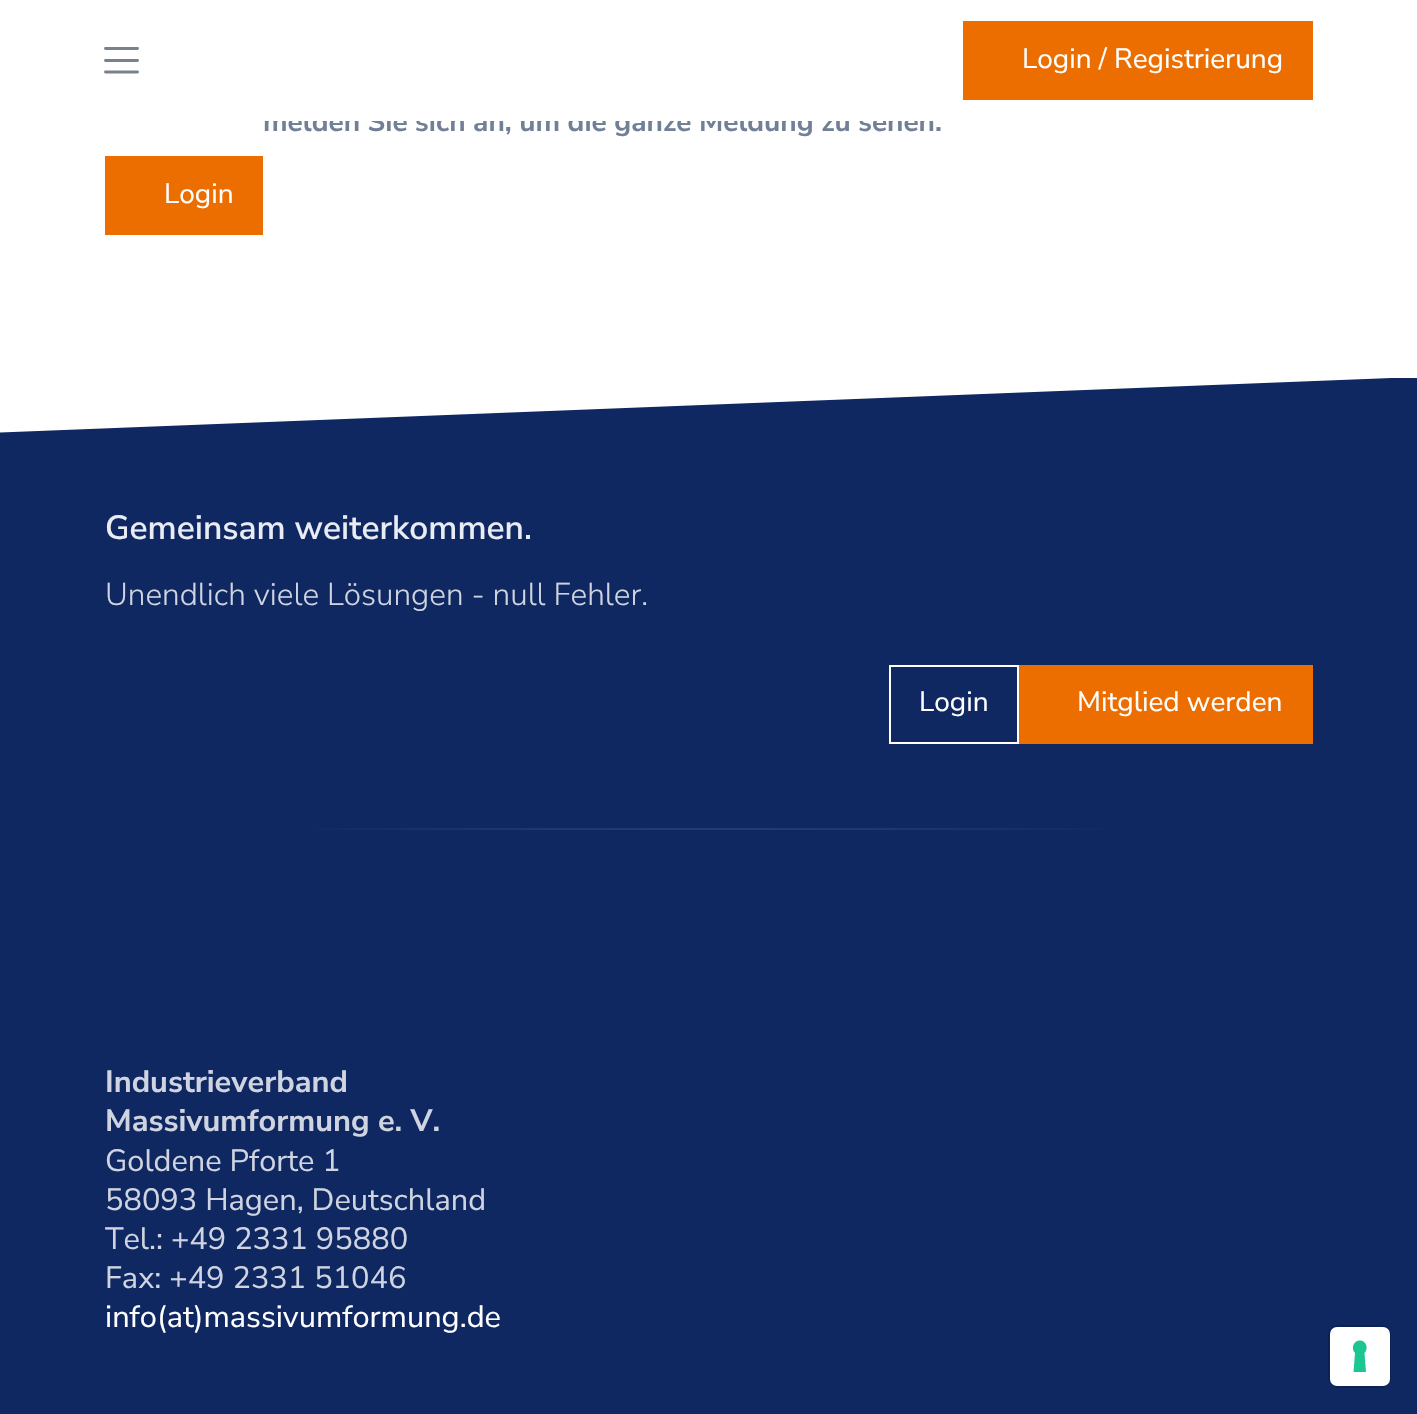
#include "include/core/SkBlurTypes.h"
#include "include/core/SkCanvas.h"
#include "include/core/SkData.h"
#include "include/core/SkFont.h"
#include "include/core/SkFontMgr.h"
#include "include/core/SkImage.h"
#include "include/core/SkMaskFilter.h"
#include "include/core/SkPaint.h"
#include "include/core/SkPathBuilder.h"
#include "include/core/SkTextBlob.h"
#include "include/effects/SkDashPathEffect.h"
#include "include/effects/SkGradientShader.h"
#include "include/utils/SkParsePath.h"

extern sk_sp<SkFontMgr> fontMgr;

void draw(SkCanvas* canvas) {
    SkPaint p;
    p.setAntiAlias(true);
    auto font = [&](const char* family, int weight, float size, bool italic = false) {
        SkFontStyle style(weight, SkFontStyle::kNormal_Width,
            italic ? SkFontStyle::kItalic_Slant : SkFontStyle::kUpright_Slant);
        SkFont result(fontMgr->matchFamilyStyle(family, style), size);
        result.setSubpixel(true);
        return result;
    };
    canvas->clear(0xFFFFFFFF);
    auto font1 = font("Nunito Sans", 700, 28);
    p.setColor(0xFF718096);
    canvas->drawString("melden Sie sich an, um die ganze Meldung zu sehen.", 263, 131, font1, p);
    p.setColor(0xFFFFFFFF);
    canvas->drawRect(SkRect::MakeLTRB(264, 110, 934, 121), p);
    p.setStyle(SkPaint::kStroke_Style);
    p.setStrokeWidth(2.9f);
    p.setStrokeCap(SkPaint::kRound_Cap);
    p.setColor(0xFF79818B);
    canvas->drawPath(SkPathBuilder().moveTo(105.5f, 48.5f).lineTo(137.5f, 48.5f).moveTo(105.5f, 60.5f).lineTo(137.5f, 60.5f).moveTo(105.5f, 72).lineTo(137.5f, 72).detach(), p);
    p.setStyle(SkPaint::kFill_Style);
    p.setColor(0xFFEC6E00);
    canvas->drawRect(SkRect::MakeLTRB(963, 21, 1313, 100), p);
    auto font2 = font("Nunito Sans", 400, 28);
    p.setColor(0xFFFFFFFF);
    canvas->drawString("Login / Registrierung", 1022, 68, font2, p);
    p.setColor(0xFFEC6E00);
    canvas->drawRect(SkRect::MakeLTRB(105, 156, 263, 235), p);
    p.setColor(0xFFFFFFFF);
    canvas->drawString("Login", 164, 203, font2, p);
    p.setColor(0xFF0F2862);
    canvas->drawRect(SkRect::MakeLTRB(0, 378, 1417, 1414), p);
    p.setColor(0xFFFFFFFF);
    canvas->drawPath(SkPathBuilder().moveTo(-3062, 552).lineTo(-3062, 377).lineTo(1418, 377).close().detach(), p);
    auto font3 = font("Nunito Sans", 600, 33.6f);
    p.setColor(0xFFEAECF3);
    canvas->drawString("Gemeinsam weiterkommen.", 105, 539, font3, p);
    auto font4 = font("Nunito Sans", 300, 31.5f);
    p.setColor(0xFFCFD4E0);
    canvas->drawString("Unendlich viele Lösungen - null Fehler.", 105, 605, font4, p);
    p.setStyle(SkPaint::kStroke_Style);
    p.setStrokeWidth(2);
    p.setStrokeCap(SkPaint::kButt_Cap);
    p.setColor(0xFFFFFFFF);
    canvas->drawRect(SkRect::MakeLTRB(890, 666, 1018, 743), p);
    p.setStyle(SkPaint::kFill_Style);
    canvas->drawString("Login", 919, 711, font2, p);
    p.setColor(0xFFEC6E00);
    canvas->drawRect(SkRect::MakeLTRB(1019, 665, 1313, 744), p);
    p.setColor(0xFFFFFFFF);
    canvas->drawString("Mitglied werden", 1077, 711, font2, p);
    {
        const SkColor colors[] = {0xFF3F5381, 0xFF0F2862};
        const float stops[] = {0, 0.75f};
        SkMatrix m = SkMatrix::Translate(709, 829).preScale(683, 1.2f);
        p.setShader(SkGradientShader::MakeRadial({0, 0}, 1, colors, stops, 2, SkTileMode::kClamp, 0, &m));
        p.setAlpha(255);
    }
    canvas->drawRect(SkRect::MakeLTRB(316, 828, 1102, 830), p);
    auto font5 = font("Nunito Sans", 700, 30.75f);
    p.setShader(nullptr);
    p.setColor(0xFFCFD4E0);
    canvas->drawString("Industrieverband", 105, 1092, font5, p);
    canvas->drawString("Massivumformung e. V.", 105, 1131, font5, p);
    auto font6 = font("Nunito Sans", 400, 30.75f);
    {
        const struct { const char* s; float x, y; } items[] = {
            {"Goldene Pforte 1", 105, 1171},
            {"58093 Hagen, Deutschland", 105, 1210},
            {"Tel.: +49 2331 95880", 105, 1249},
            {"Fax: +49 2331 51046", 105, 1288},
        };
        for (auto [s, x, y] : items) {
            canvas->drawString(s, x, y, font6, p);
        }
    }
    p.setColor(0xFFFFFFFF);
    canvas->drawString("info(at)massivumformung.de", 105, 1327, font6, p);
    p.setStyle(SkPaint::kStroke_Style);
    p.setColor(0xFF0D2253);
    canvas->drawRoundRect(SkRect::MakeLTRB(1329, 1326, 1390, 1387), 8, 8, p);
    p.setStyle(SkPaint::kFill_Style);
    p.setColor(0xFFFFFFFF);
    canvas->drawRoundRect(SkRect::MakeLTRB(1330, 1327, 1390, 1386), 7, 7, p);
    p.setColor(0xFF1CC691);
    canvas->drawPath(SkPathBuilder(SkPathFillType::kEvenOdd).moveTo(1360, 1340.5f).cubicTo(1366, 1340.5f, 1369, 1348.5f, 1364.5f, 1353).lineTo(1366, 1372).lineTo(1353.5f, 1372).lineTo(1355, 1353).cubicTo(1350.5f, 1348.5f, 1353.5f, 1340.5f, 1360, 1340.5f).close().detach(), p);
}
